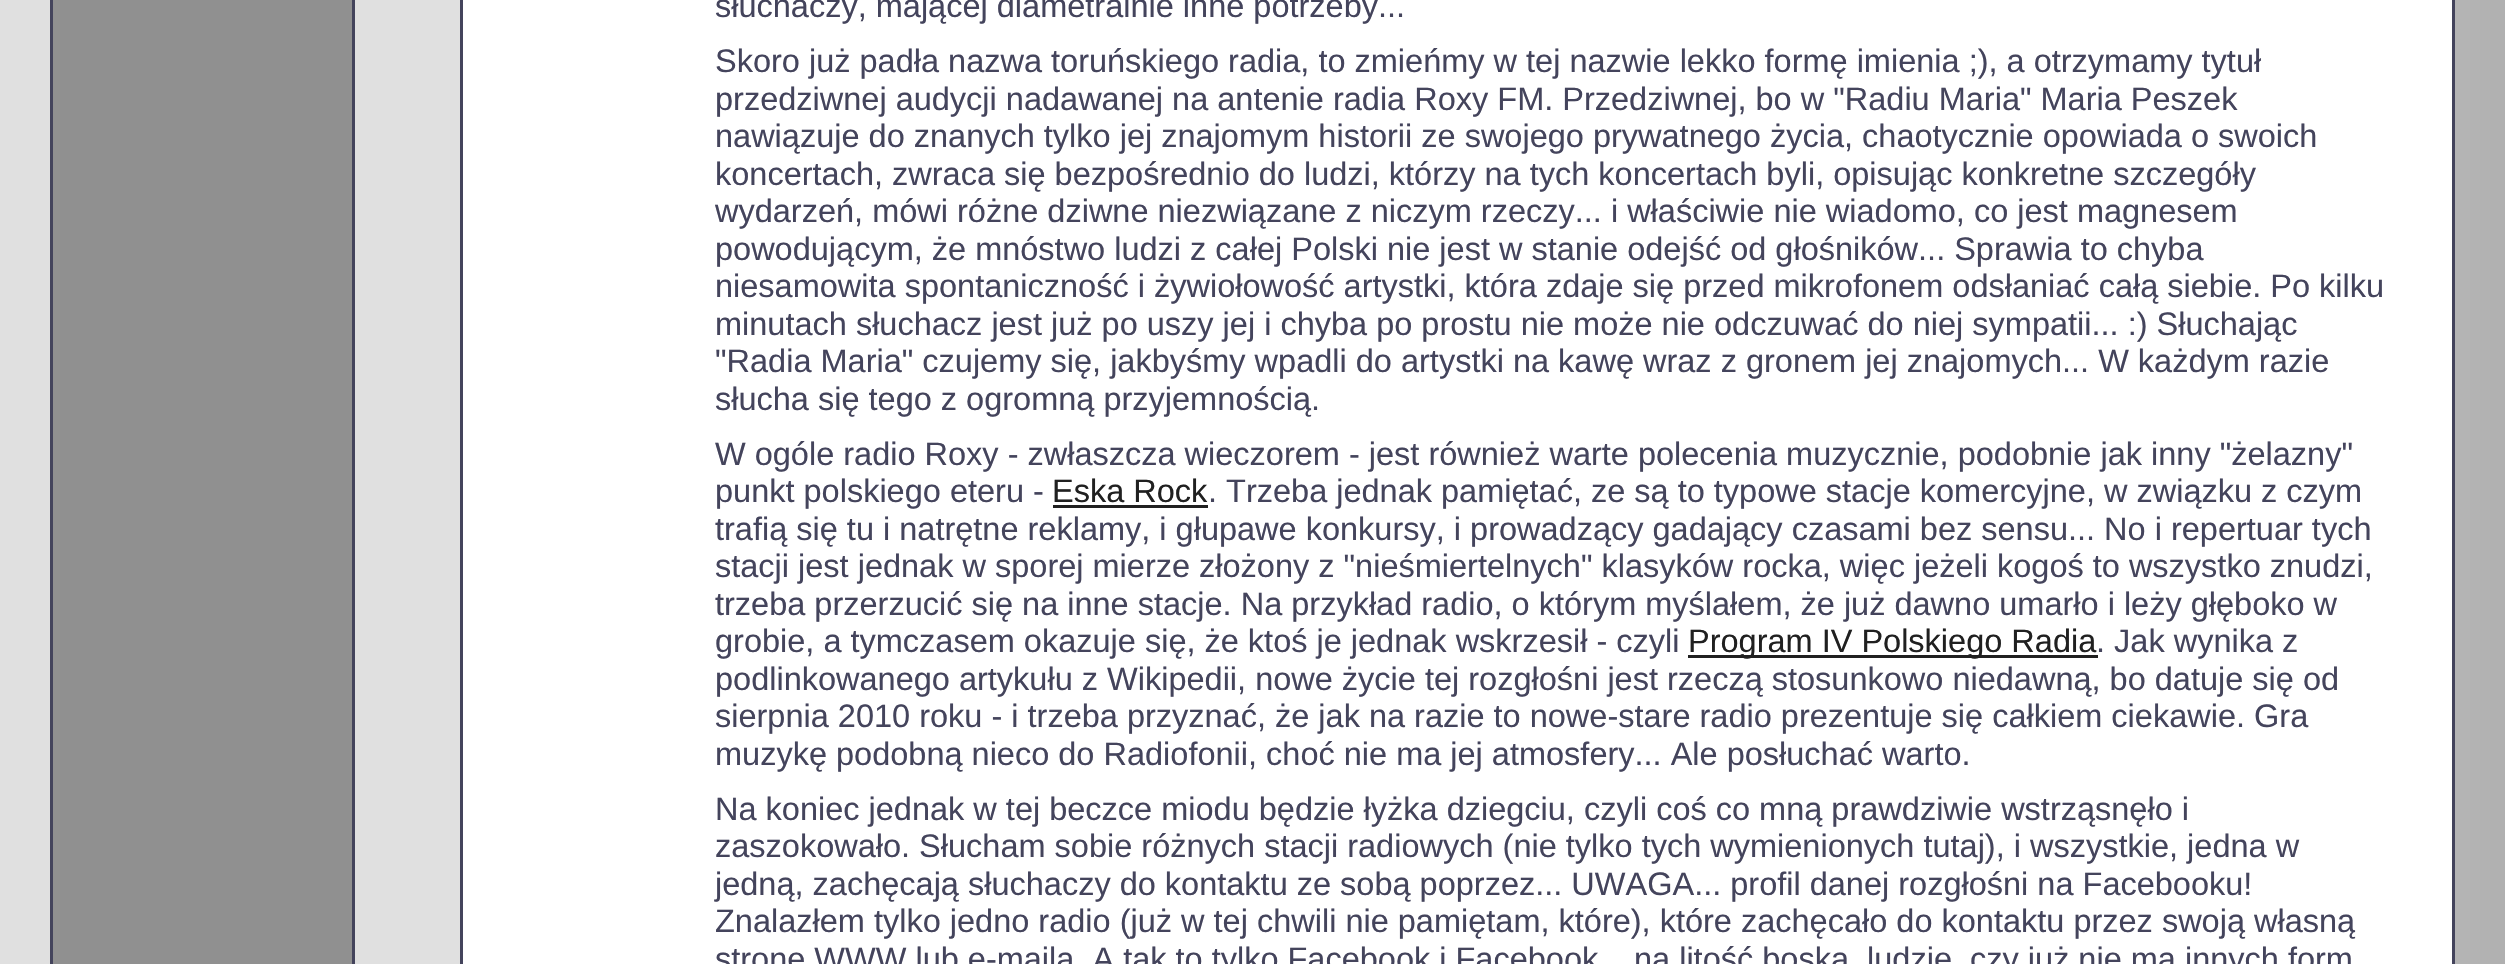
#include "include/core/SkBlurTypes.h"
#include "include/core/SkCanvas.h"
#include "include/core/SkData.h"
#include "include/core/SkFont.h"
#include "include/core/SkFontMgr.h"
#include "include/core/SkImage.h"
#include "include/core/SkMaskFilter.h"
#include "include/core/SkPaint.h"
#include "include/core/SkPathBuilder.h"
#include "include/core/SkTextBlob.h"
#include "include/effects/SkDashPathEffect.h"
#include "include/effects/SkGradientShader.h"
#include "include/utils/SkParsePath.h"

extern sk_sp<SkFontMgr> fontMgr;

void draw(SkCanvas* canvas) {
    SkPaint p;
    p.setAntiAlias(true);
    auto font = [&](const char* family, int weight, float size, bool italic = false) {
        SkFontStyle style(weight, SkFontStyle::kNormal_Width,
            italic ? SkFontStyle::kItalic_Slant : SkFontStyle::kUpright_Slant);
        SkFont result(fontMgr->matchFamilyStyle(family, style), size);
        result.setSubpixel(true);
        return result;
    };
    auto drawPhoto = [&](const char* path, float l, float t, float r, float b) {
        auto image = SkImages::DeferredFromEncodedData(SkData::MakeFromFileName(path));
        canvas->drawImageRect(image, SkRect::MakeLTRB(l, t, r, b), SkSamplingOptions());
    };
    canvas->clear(0xFFE0E0E0);
    drawPhoto("media/1.png", 2455, 0, 2505, 964);
    p.setColor(0xFF909090);
    canvas->drawRect(SkRect::MakeLTRB(51.5f, -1.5f, 353.5f, 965.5f), p);
    p.setStyle(SkPaint::kStroke_Style);
    p.setStrokeWidth(3);
    p.setColor(0xFF44445C);
    canvas->drawRect(SkRect::MakeLTRB(51.5f, -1.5f, 353.5f, 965.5f), p);
    p.setStyle(SkPaint::kFill_Style);
    p.setColor(0xFFFFFFFF);
    canvas->drawRect(SkRect::MakeLTRB(461.5f, -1.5f, 2453.5f, 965.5f), p);
    p.setStyle(SkPaint::kStroke_Style);
    p.setColor(0xFF44445C);
    canvas->drawRect(SkRect::MakeLTRB(461.5f, -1.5f, 2453.5f, 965.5f), p);
    auto font1 = font("Liberation Sans", 400, 32.5f);
    p.setStyle(SkPaint::kFill_Style);
    {
        const struct { const char* s; float x, y; } items[] = {
            {"słuchaczy, mającej diametralnie inne potrzeby...", 715, 17},
            {"Skoro już padła nazwa toruńskiego radia, to zmieńmy w tej nazwie lekko formę imienia ;), a otrzymamy tytuł", 715, 72},
            {"przedziwnej audycji nadawanej na antenie radia Roxy FM. Przedziwnej, bo w \"Radiu Maria\" Maria Peszek", 715, 110},
            {"nawiązuje do znanych tylko jej znajomym historii ze swojego prywatnego życia, chaotycznie opowiada o swoich", 715, 147},
            {"koncertach, zwraca się bezpośrednio do ludzi, którzy na tych koncertach byli, opisując konkretne szczegóły", 715, 185},
            {"wydarzeń, mówi różne dziwne niezwiązane z niczym rzeczy... i właściwie nie wiadomo, co jest magnesem", 715, 222},
            {"powodującym, że mnóstwo ludzi z całej Polski nie jest w stanie odejść od głośników... Sprawia to chyba", 715, 260},
            {"niesamowita spontaniczność i żywiołowość artystki, która zdaje się przed mikrofonem odsłaniać całą siebie. Po kilku", 715, 297},
            {"minutach słuchacz jest już po uszy jej i chyba po prostu nie może nie odczuwać do niej sympatii... :) Słuchając", 715, 335},
            {"\"Radia Maria\" czujemy się, jakbyśmy wpadli do artystki na kawę wraz z gronem jej znajomych... W każdym razie", 715, 372},
            {"słucha się tego z ogromną przyjemnością.", 715, 410},
            {"W ogóle radio Roxy - zwłaszcza wieczorem - jest również warte polecenia muzycznie, podobnie jak inny \"żelazny\"", 715, 465},
            {"punkt polskiego eteru -", 715, 502},
        };
        for (auto [s, x, y] : items) {
            canvas->drawString(s, x, y, font1, p);
        }
    }
    p.setColor(0xFF202020);
    canvas->drawString("Eska Rock", 1052, 502, font1, p);
    canvas->drawRect(SkRect::MakeLTRB(1053, 505, 1208, 508), p);
    p.setColor(0xFF44445C);
    {
        const struct { const char* s; float x, y; } items[] = {
            {". Trzeba jednak pamiętać, ze są to typowe stacje komercyjne, w związku z czym", 1208, 502},
            {"trafią się tu i natrętne reklamy, i głupawe konkursy, i prowadzący gadający czasami bez sensu... No i repertuar tych", 715, 540},
            {"stacji jest jednak w sporej mierze złożony z \"nieśmiertelnych\" klasyków rocka, więc jeżeli kogoś to wszystko znudzi,", 715, 577},
            {"trzeba przerzucić się na inne stacje. Na przykład radio, o którym myślałem, że już dawno umarło i leży głęboko w", 715, 615},
            {"grobie, a tymczasem okazuje się, że ktoś je jednak wskrzesił - czyli", 715, 652},
        };
        for (auto [s, x, y] : items) {
            canvas->drawString(s, x, y, font1, p);
        }
    }
    p.setColor(0xFF202020);
    canvas->drawRect(SkRect::MakeLTRB(1688, 655, 2098, 658), p);
    canvas->drawString("Program IV Polskiego Radia", 1688, 652, font1, p);
    p.setColor(0xFF44445C);
    {
        const struct { const char* s; float x, y; } items[] = {
            {". Jak wynika z", 2096, 652},
            {"podlinkowanego artykułu z Wikipedii, nowe życie tej rozgłośni jest rzeczą stosunkowo niedawną, bo datuje się od", 715, 690},
            {"sierpnia 2010 roku - i trzeba przyznać, że jak na razie to nowe-stare radio prezentuje się całkiem ciekawie. Gra", 715, 727},
            {"muzykę podobną nieco do Radiofonii, choć nie ma jej atmosfery... Ale posłuchać warto.", 715, 765},
            {"Na koniec jednak w tej beczce miodu będzie łyżka dziegciu, czyli coś co mną prawdziwie wstrząsnęło i", 715, 820},
            {"zaszokowało. Słucham sobie różnych stacji radiowych (nie tylko tych wymienionych tutaj), i wszystkie, jedna w", 715, 857},
            {"jedną, zachęcają słuchaczy do kontaktu ze sobą poprzez... UWAGA... profil danej rozgłośni na Facebooku!", 715, 895},
            {"Znalazłem tylko jedno radio (już w tej chwili nie pamiętam, które), które zachęcało do kontaktu przez swoją własną", 715, 932},
            {"stronę WWW lub e-maila. A tak to tylko Facebook i Facebook", 715, 970},
            {"na litość boską, ludzie, czy już nie ma innych form", 1634, 970},
        };
        for (auto [s, x, y] : items) {
            canvas->drawString(s, x, y, font1, p);
        }
    }
}
